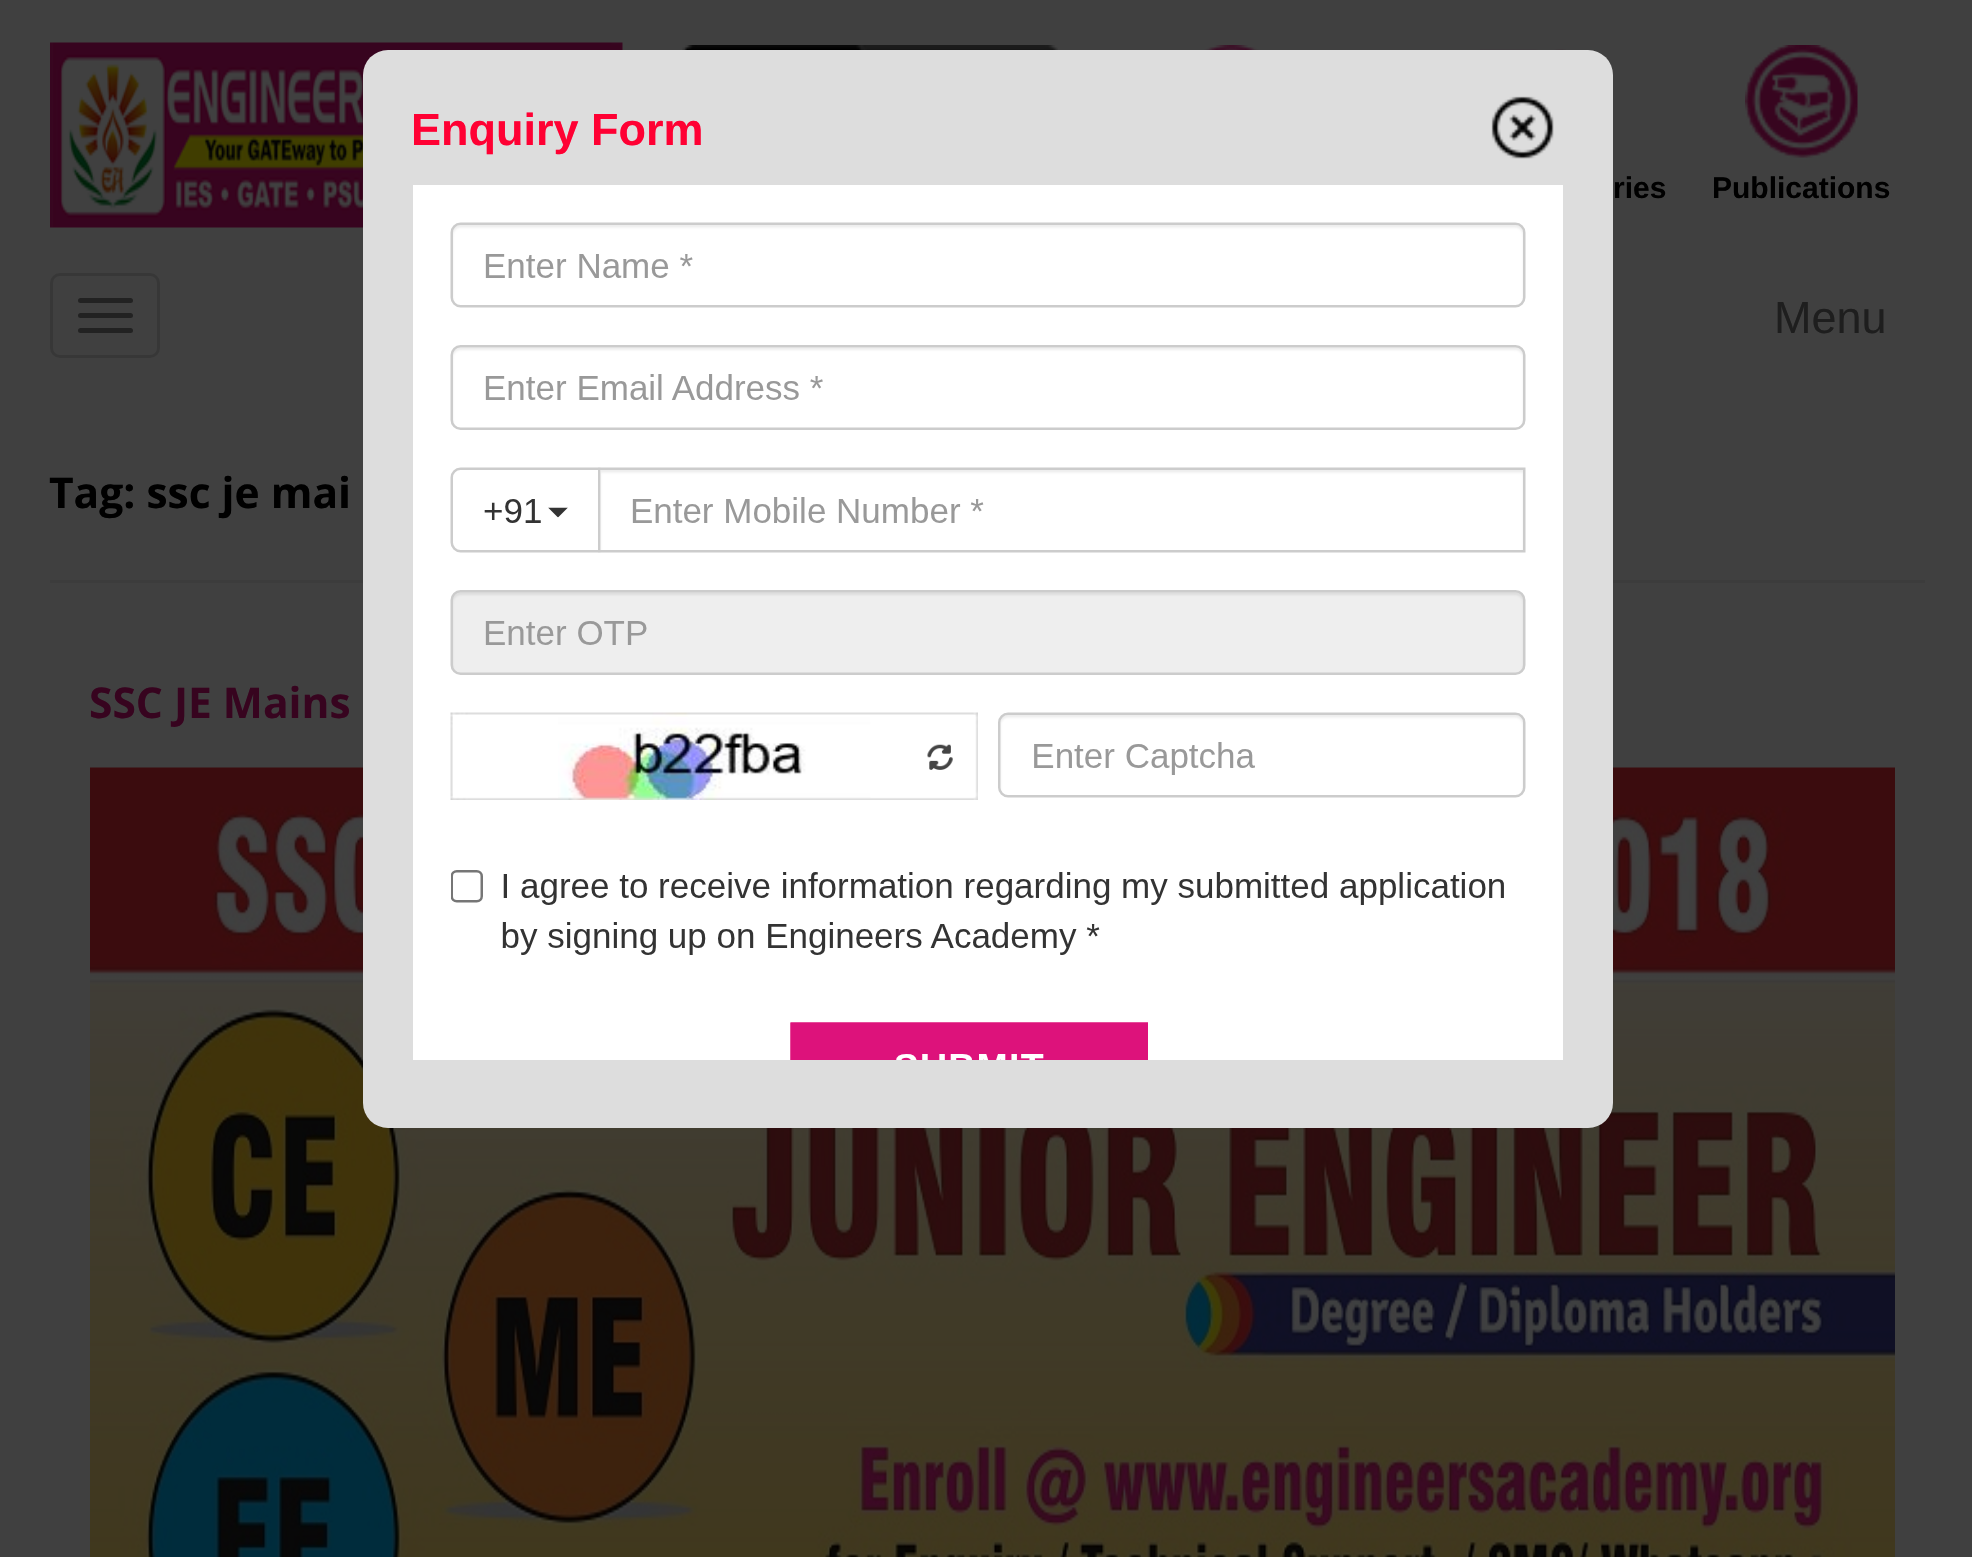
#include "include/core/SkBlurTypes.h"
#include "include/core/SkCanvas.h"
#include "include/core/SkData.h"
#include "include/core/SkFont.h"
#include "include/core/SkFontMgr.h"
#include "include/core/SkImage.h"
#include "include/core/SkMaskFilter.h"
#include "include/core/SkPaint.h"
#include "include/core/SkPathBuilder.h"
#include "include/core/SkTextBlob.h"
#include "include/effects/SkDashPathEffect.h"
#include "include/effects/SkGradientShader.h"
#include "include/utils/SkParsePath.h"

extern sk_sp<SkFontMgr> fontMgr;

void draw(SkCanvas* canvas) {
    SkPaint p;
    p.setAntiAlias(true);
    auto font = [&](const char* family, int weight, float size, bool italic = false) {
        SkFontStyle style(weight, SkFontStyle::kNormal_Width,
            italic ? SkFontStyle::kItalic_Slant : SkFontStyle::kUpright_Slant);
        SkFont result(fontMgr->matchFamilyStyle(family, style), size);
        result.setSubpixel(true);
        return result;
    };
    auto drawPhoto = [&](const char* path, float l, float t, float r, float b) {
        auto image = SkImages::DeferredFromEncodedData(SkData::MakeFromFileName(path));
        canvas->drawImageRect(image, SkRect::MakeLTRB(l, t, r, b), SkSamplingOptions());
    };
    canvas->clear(0xFF404040);
    drawPhoto("media/3.png", 50, 42, 623, 228);
    p.setColor(0xFF3C3C3C);
    canvas->drawRect(SkRect::MakeLTRB(50, 580, 1925, 583), p);
    drawPhoto("media/8.png", 90, 767, 1895, 1557);
    p.setColor(0xFFDDDDDD);
    canvas->drawRoundRect(SkRect::MakeLTRB(363, 50, 1613, 1128), 25, 25, p);
    auto font1 = font("Liberation Sans", 700, 45);
    p.setColor(0xFFFF0033);
    canvas->drawString("Enquiry Form", 411, 145, font1, p);
    drawPhoto("media/1.png", 1491, 96, 1554, 159);
    drawPhoto("media/2.png", 413, 185, 1563, 1060);
    drawPhoto("media/4.png", 682, 45, 1060, 50);
    drawPhoto("media/5.png", 1204, 45, 1259, 50);
    drawPhoto("media/6.png", 1480, 49, 1566, 50);
    auto font2 = font("Liberation Sans", 700, 30);
    p.setColor(0xFF000000);
    canvas->drawString("ries", 1613, 198, font2, p);
    drawPhoto("media/7.png", 1745, 45, 1858, 158);
    canvas->drawString("Publications", 1712, 198, font2, p);
    p.setStyle(SkPaint::kStroke_Style);
    p.setStrokeWidth(3);
    p.setColor(0xFF373737);
    canvas->drawRoundRect(SkRect::MakeLTRB(51.5f, 274.5f, 158.5f, 356.5f), 8.5f, 8.5f, p);
    p.setStyle(SkPaint::kFill_Style);
    p.setColor(0xFF222222);
    canvas->drawRoundRect(SkRect::MakeLTRB(78, 298, 133, 303), 2.5f, 2.5f, p);
    canvas->drawRoundRect(SkRect::MakeLTRB(78, 313, 133, 318), 2.5f, 2.5f, p);
    canvas->drawRoundRect(SkRect::MakeLTRB(78, 328, 133, 333), 2.5f, 2.5f, p);
    auto font3 = font("Liberation Sans", 400, 45);
    p.setColor(0xFF1E1E1E);
    canvas->drawString("Menu", 1774, 333, font3, p);
    auto font4 = font("Open Sans", 700, 42.5f);
    p.setColor(0xFF000000);
    canvas->drawString("Tag: ssc je mai", 49, 508, font4, p);
    p.setColor(0xFF37041F);
    canvas->drawString("SSC JE Mains", 89, 718, font4, p);
}
